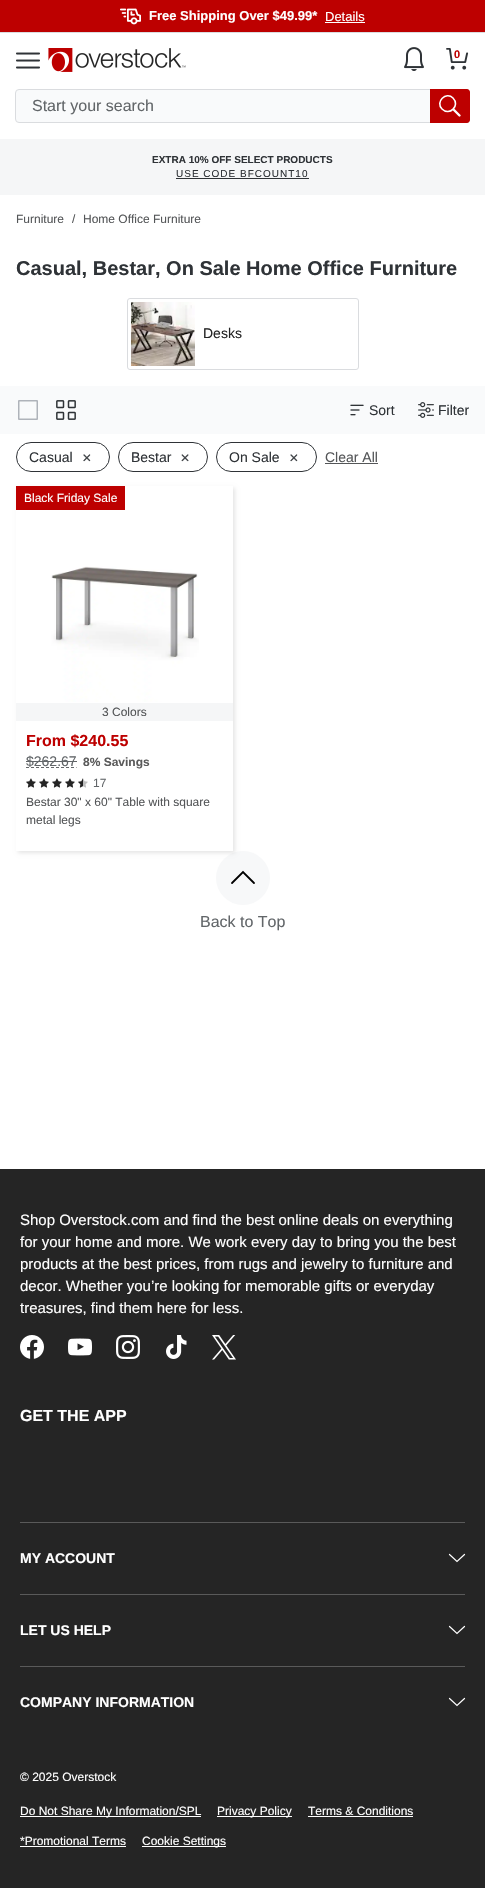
#include "include/core/SkBlurTypes.h"
#include "include/core/SkCanvas.h"
#include "include/core/SkData.h"
#include "include/core/SkFont.h"
#include "include/core/SkFontMgr.h"
#include "include/core/SkImage.h"
#include "include/core/SkMaskFilter.h"
#include "include/core/SkPaint.h"
#include "include/core/SkPathBuilder.h"
#include "include/core/SkTextBlob.h"
#include "include/effects/SkDashPathEffect.h"
#include "include/effects/SkGradientShader.h"
#include "include/utils/SkParsePath.h"

extern sk_sp<SkFontMgr> fontMgr;

void draw(SkCanvas* canvas) {
    SkPaint p;
    p.setAntiAlias(true);
    auto font = [&](const char* family, int weight, float size, bool italic = false) {
        SkFontStyle style(weight, SkFontStyle::kNormal_Width,
            italic ? SkFontStyle::kItalic_Slant : SkFontStyle::kUpright_Slant);
        SkFont result(fontMgr->matchFamilyStyle(family, style), size);
        result.setSubpixel(true);
        return result;
    };
    auto drawTracked = [&](const char* s, float x, float y, const SkFont& font, const SkPaint& ink, float letter, float word) {
        std::vector<SkGlyphID> glyphs(font.countText(s, strlen(s), SkTextEncoding::kUTF8));
        std::vector<float> xs(glyphs.size());
        font.textToGlyphs(s, strlen(s), SkTextEncoding::kUTF8, glyphs);
        font.getXPos(glyphs, xs, x);
        float extra = 0;
        for (size_t i = 0; i < glyphs.size(); i++) {
            xs[i] += extra;
            extra += letter + word * (glyphs[i] == font.unicharToGlyph(' '));
        }
        canvas->drawTextBlob(SkTextBlob::MakeFromPosHGlyphs(glyphs, xs, y, font), 0, 0, ink);
    };
    auto drawPhoto = [&](const char* path, float l, float t, float r, float b) {
        auto image = SkImages::DeferredFromEncodedData(SkData::MakeFromFileName(path));
        canvas->drawImageRect(image, SkRect::MakeLTRB(l, t, r, b), SkSamplingOptions());
    };
    canvas->clear(0xFFFFFFFF);
    p.setColor(0xFFBD0000);
    canvas->drawRect(SkRect::MakeLTRB(0, 0, 485, 32), p);
    drawPhoto("media/1.png", 120, 8, 141, 25);
    auto font1 = font("Liberation Sans", 700, 13);
    p.setColor(0xFFFFFFFF);
    canvas->drawString("Free Shipping Over $49.99*", 149, 20, font1, p);
    auto font2 = font("Liberation Sans", 400, 13);
    canvas->drawString("Details", 325, 21, font2, p);
    canvas->drawRect(SkRect::MakeLTRB(325, 22, 365, 23), p);
    p.setColor(0xFFDADCDF);
    canvas->drawRect(SkRect::MakeLTRB(0, 32, 485, 33), p);
    drawPhoto("media/2.png", 16, 52, 40, 69);
    drawPhoto("media/3.png", 48, 48, 186, 72);
    drawPhoto("media/4.png", 404, 47, 424, 71);
    drawPhoto("media/5.png", 446, 48, 469, 70);
    auto font3 = font("Liberation Sans", 700, 11);
    p.setColor(0xFFBD0000);
    canvas->drawString("0", 454, 58, font3, p);
    p.setColor(0xFFF9FAFB);
    canvas->drawRoundRect(SkRect::MakeLTRB(15.5f, 89.5f, 469.5f, 122.5f), 3.5f, 3.5f, p);
    p.setStyle(SkPaint::kStroke_Style);
    p.setStrokeWidth(1);
    p.setColor(0xFFDADCDF);
    canvas->drawRoundRect(SkRect::MakeLTRB(15.5f, 89.5f, 469.5f, 122.5f), 3.5f, 3.5f, p);
    auto font4 = font("Liberation Sans", 400, 16);
    p.setStyle(SkPaint::kFill_Style);
    p.setColor(0xFF626669);
    canvas->drawString("Start your search", 32, 111, font4, p);
    p.setColor(0xFFBD0000);
    canvas->drawPath(SkPathBuilder().moveTo(430, 89).lineTo(467, 89).cubicTo(468.5f, 89, 470, 90.5f, 470, 92).lineTo(470, 120).cubicTo(470, 121.5f, 468.5f, 123, 467, 123).lineTo(430, 123).close().detach(), p);
    p.setStyle(SkPaint::kStroke_Style);
    p.setStrokeWidth(2.4f);
    p.setStrokeCap(SkPaint::kRound_Cap);
    p.setColor(0xFFFFFFFF);
    canvas->drawPath(SkPathBuilder().moveTo(459.5f, 115.5f).lineTo(454, 110).detach(), p);
    p.setStrokeWidth(1.6f);
    p.setStrokeCap(SkPaint::kButt_Cap);
    canvas->drawPath(SkPathBuilder().moveTo(453, 98).cubicTo(460.5f, 105.5f, 449.5f, 116.5f, 442, 109).cubicTo(435, 102, 446, 91, 453, 98).close().detach(), p);
    p.setStyle(SkPaint::kFill_Style);
    p.setColor(0xFFF5F6F7);
    canvas->drawRect(SkRect::MakeLTRB(0, 139, 485, 195), p);
    auto font5 = font("Liberation Sans", 700, 10);
    p.setColor(0xFF2F3337);
    canvas->drawString("EXTRA 10% OFF SELECT PRODUCTS", 152, 163, font5, p);
    auto font6 = font("Liberation Sans", 400, 10);
    drawTracked("USE CODE BFCOUNT10", 176, 177, font6, p, 1, 0);
    canvas->drawRect(SkRect::MakeLTRB(176, 178, 309, 179), p);
    auto font7 = font("Liberation Sans", 400, 12);
    p.setColor(0xFF545658);
    {
        const struct { const char* s; float x, y; } items[] = {
            {"Furniture", 16, 223},
            {"/", 72, 223},
            {"Home Office Furniture", 83, 223},
        };
        for (auto [s, x, y] : items) {
            canvas->drawString(s, x, y, font7, p);
        }
    }
    auto font8 = font("Liberation Sans", 700, 20);
    p.setColor(0xFF2F3337);
    canvas->drawString("Casual, Bestar, On Sale Home Office Furniture", 16, 275, font8, p);
    p.setStyle(SkPaint::kStroke_Style);
    p.setStrokeWidth(1);
    p.setColor(0xFFDADCDF);
    canvas->drawRoundRect(SkRect::MakeLTRB(127.5f, 298.5f, 358.5f, 369.5f), 2.5f, 2.5f, p);
    drawPhoto("media/6.png", 131, 302, 195, 366);
    auto font9 = font("Liberation Sans", 400, 14);
    p.setStyle(SkPaint::kFill_Style);
    p.setColor(0xFF252525);
    canvas->drawString("Desks", 203, 338, font9, p);
    p.setColor(0xFFF9FAFB);
    canvas->drawRect(SkRect::MakeLTRB(0, 386, 485, 434), p);
    drawPhoto("media/7.png", 18, 400, 38, 420);
    drawPhoto("media/8.png", 56, 400, 76, 420);
    drawPhoto("media/9.png", 350, 404, 364, 416);
    p.setColor(0xFF2F3337);
    canvas->drawString("Sort", 369, 415, font9, p);
    drawPhoto("media/10.png", 418, 402, 434, 418);
    canvas->drawString("Filter", 438, 415, font9, p);
    p.setStyle(SkPaint::kStroke_Style);
    canvas->drawRoundRect(SkRect::MakeLTRB(16.5f, 442.5f, 109.5f, 471.5f), 14.5f, 14.5f, p);
    p.setStyle(SkPaint::kFill_Style);
    canvas->drawString("Casual", 29, 462, font9, p);
    drawPhoto("media/11.png", 83, 454, 91, 462);
    p.setStyle(SkPaint::kStroke_Style);
    canvas->drawRoundRect(SkRect::MakeLTRB(118.5f, 442.5f, 207.5f, 471.5f), 14.5f, 14.5f, p);
    p.setStyle(SkPaint::kFill_Style);
    canvas->drawString("Bestar", 131, 462, font9, p);
    drawPhoto("media/12.png", 181, 454, 189, 462);
    p.setStyle(SkPaint::kStroke_Style);
    canvas->drawRoundRect(SkRect::MakeLTRB(216.5f, 442.5f, 316.5f, 471.5f), 14.5f, 14.5f, p);
    p.setStyle(SkPaint::kFill_Style);
    canvas->drawString("On Sale", 229, 462, font9, p);
    drawPhoto("media/13.png", 290, 454, 298, 462);
    p.setColor(0xFF545658);
    canvas->drawString("Clear All", 325, 462, font9, p);
    canvas->drawRect(SkRect::MakeLTRB(325, 463, 378, 464), p);
    p.setColor(0xFFF7F8F9);
    canvas->drawCircle(243, 878, 27, p);
    canvas->save();
    canvas->clipPath(SkPathBuilder(SkPathFillType::kEvenOdd).moveTo(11, 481).lineTo(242, 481).lineTo(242, 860).lineTo(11, 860).close().moveTo(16, 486).lineTo(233, 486).lineTo(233, 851).lineTo(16, 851).close().detach(), true);
    p.setColor(0x1A000000);
    p.setMaskFilter(SkMaskFilter::MakeBlur(kNormal_SkBlurStyle, 2));
    canvas->drawRect(SkRect::MakeLTRB(18, 488, 235, 853), p);
    p.setMaskFilter(nullptr);
    canvas->restore();
    p.setColor(0xFFBD0000);
    canvas->drawRect(SkRect::MakeLTRB(16, 486, 125, 510), p);
    p.setColor(0xFFFFFFFF);
    canvas->drawString("Black Friday Sale", 24, 502, font7, p);
    auto font10 = font("Liberation Sans", 700, 16);
    p.setColor(0xFFBD0000);
    canvas->drawString("From $240.55", 26, 746, font10, p);
    p.setColor(0xFF626669);
    canvas->drawString("$262.67", 26, 766, font9, p);
    p.setStyle(SkPaint::kStroke_Style);
    p.setPathEffect(SkDashPathEffect::Make({{3, 2}}, 0));
    canvas->drawPath(SkPathBuilder().moveTo(26, 767.5f).lineTo(76.5f, 767.5f).detach(), p);
    p.setPathEffect(nullptr);
    p.setStyle(SkPaint::kFill_Style);
    canvas->drawRect(SkRect::MakeLTRB(26, 761, 77, 762), p);
    auto font11 = font("Liberation Sans", 700, 12);
    p.setColor(0xFF5A5A5A);
    canvas->drawString("8% Savings", 83, 766, font11, p);
    drawPhoto("media/14.png", 26, 778, 36, 788);
    drawPhoto("media/14.png", 39, 778, 49, 788);
    drawPhoto("media/14.png", 52, 778, 62, 788);
    drawPhoto("media/14.png", 65, 778, 75, 788);
    drawPhoto("media/15.png", 78, 778, 88, 788);
    p.setColor(0xFF626669);
    canvas->drawString("17", 93, 787, font7, p);
    p.setColor(0xFF545658);
    canvas->drawString("Bestar 30\" x 60\" Table with square", 26, 806, font7, p);
    canvas->drawString("metal legs", 26, 824, font7, p);
    p.setColor(0xFFF5F6F7);
    canvas->drawRect(SkRect::MakeLTRB(16, 703, 233, 721), p);
    p.setColor(0xFF545658);
    canvas->drawString("3 Colors", 102, 716, font7, p);
    drawPhoto("media/16.png", 51, 566, 199, 702);
    p.setStyle(SkPaint::kStroke_Style);
    p.setStrokeWidth(1.8f);
    p.setStrokeCap(SkPaint::kRound_Cap);
    p.setColor(0xFF000000);
    canvas->drawPath(SkPathBuilder().moveTo(232, 883).lineTo(243, 872).lineTo(254, 883).detach(), p);
    p.setStyle(SkPaint::kFill_Style);
    p.setColor(0xFF626669);
    canvas->drawString("Back to Top", 200, 927, font4, p);
    p.setColor(0xFF252525);
    canvas->drawRect(SkRect::MakeLTRB(0, 1169, 485, 1888), p);
    auto font12 = font("Liberation Sans", 400, 15);
    p.setColor(0xFFFFFFFF);
    {
        const struct { const char* s; float x, y; } items[] = {
            {"Shop Overstock.com and find the best online deals on everything", 20, 1225},
            {"for your home and more. We work every day to bring you the best", 20, 1247},
            {"products at the best prices, from rugs and jewelry to furniture and", 20, 1269},
            {"decor. Whether you’re looking for memorable gifts or everyday", 20, 1291},
            {"treasures, find them here for less.", 20, 1313},
        };
        for (auto [s, x, y] : items) {
            canvas->drawString(s, x, y, font12, p);
        }
    }
    drawPhoto("media/17.png", 20, 1335, 44, 1359);
    drawPhoto("media/18.png", 68, 1338, 92, 1356);
    drawPhoto("media/19.png", 116, 1335, 140, 1359);
    drawPhoto("media/20.png", 166, 1335, 187, 1359);
    drawPhoto("media/21.png", 212, 1335, 236, 1360);
    canvas->drawString("GET THE APP", 20, 1421, font10, p);
    p.setColor(0xFF5A5A5A);
    canvas->drawRect(SkRect::MakeLTRB(20, 1522, 465, 1523), p);
    auto font13 = font("Liberation Sans", 700, 14);
    p.setColor(0xFFFFFFFF);
    canvas->drawString("MY ACCOUNT", 20, 1563, font13, p);
    p.setStyle(SkPaint::kStroke_Style);
    p.setStrokeWidth(1.2f);
    canvas->drawPath(SkPathBuilder().moveTo(464.5f, 1554.5f).lineTo(457, 1561.5f).lineTo(449.5f, 1554.5f).detach(), p);
    p.setStyle(SkPaint::kFill_Style);
    p.setColor(0xFF5A5A5A);
    canvas->drawRect(SkRect::MakeLTRB(20, 1594, 465, 1595), p);
    p.setColor(0xFFFFFFFF);
    canvas->drawString("LET US HELP", 20, 1635, font13, p);
    p.setStyle(SkPaint::kStroke_Style);
    canvas->drawPath(SkPathBuilder().moveTo(464.5f, 1626.5f).lineTo(457, 1633.5f).lineTo(449.5f, 1626.5f).detach(), p);
    p.setStyle(SkPaint::kFill_Style);
    p.setColor(0xFF5A5A5A);
    canvas->drawRect(SkRect::MakeLTRB(20, 1666, 465, 1667), p);
    p.setColor(0xFFFFFFFF);
    canvas->drawString("COMPANY INFORMATION", 20, 1707, font13, p);
    p.setStyle(SkPaint::kStroke_Style);
    canvas->drawPath(SkPathBuilder().moveTo(464.5f, 1698.5f).lineTo(457, 1705.5f).lineTo(449.5f, 1698.5f).detach(), p);
    p.setStyle(SkPaint::kFill_Style);
    canvas->drawString("© 2025 Overstock", 20, 1781, font7, p);
    canvas->drawRect(SkRect::MakeLTRB(20, 1816, 201, 1817), p);
    canvas->drawString("Do Not Share My Information/SPL", 20, 1815, font7, p);
    canvas->drawRect(SkRect::MakeLTRB(217, 1816, 292, 1817), p);
    canvas->drawString("Privacy Policy", 217, 1815, font7, p);
    canvas->drawString("Terms & Conditions", 308, 1815, font7, p);
    canvas->drawRect(SkRect::MakeLTRB(308, 1816, 413, 1817), p);
    canvas->drawString("*Promotional Terms", 20, 1845, font7, p);
    canvas->drawRect(SkRect::MakeLTRB(20, 1846, 126, 1847), p);
    canvas->drawRect(SkRect::MakeLTRB(142, 1846, 226, 1847), p);
    canvas->drawString("Cookie Settings", 142, 1845, font7, p);
}
